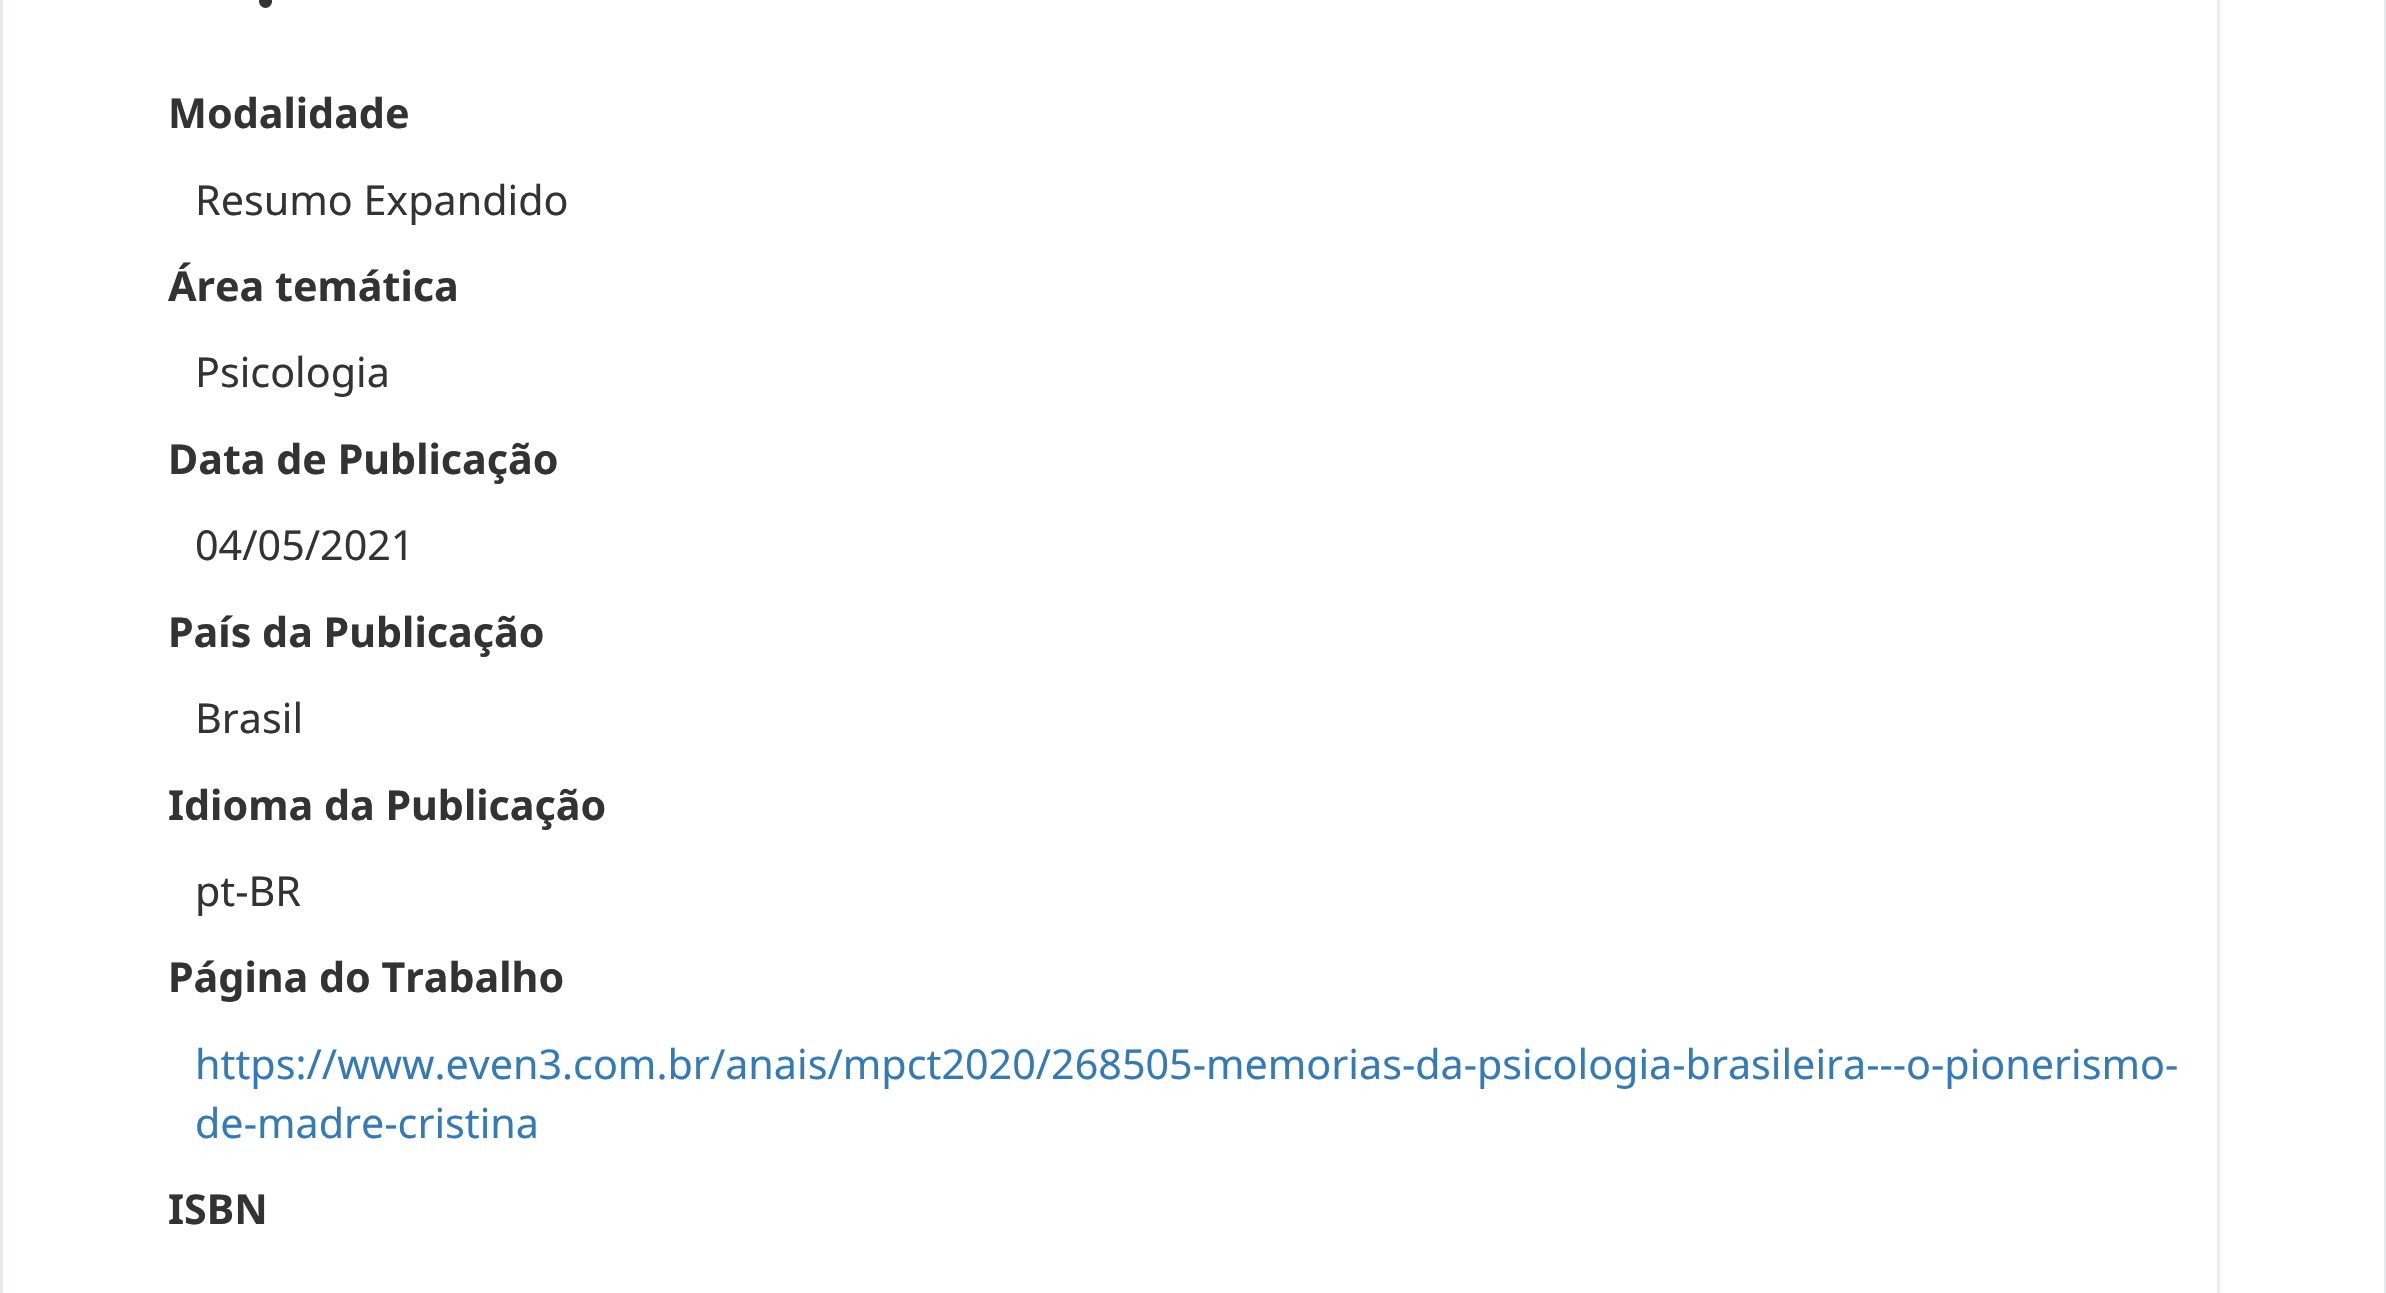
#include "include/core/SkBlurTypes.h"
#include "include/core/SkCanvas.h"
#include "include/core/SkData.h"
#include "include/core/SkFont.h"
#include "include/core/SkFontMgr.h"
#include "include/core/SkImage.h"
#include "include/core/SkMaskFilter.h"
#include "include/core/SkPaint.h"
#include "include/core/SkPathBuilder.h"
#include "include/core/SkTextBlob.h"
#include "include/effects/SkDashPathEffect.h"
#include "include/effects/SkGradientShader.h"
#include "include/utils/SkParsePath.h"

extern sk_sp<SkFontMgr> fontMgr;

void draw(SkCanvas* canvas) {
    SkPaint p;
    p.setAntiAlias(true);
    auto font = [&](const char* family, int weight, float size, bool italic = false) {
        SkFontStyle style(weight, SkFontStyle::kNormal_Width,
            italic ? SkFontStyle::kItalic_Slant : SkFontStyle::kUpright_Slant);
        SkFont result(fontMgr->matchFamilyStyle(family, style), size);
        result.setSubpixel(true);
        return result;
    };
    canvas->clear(0xFFFFFFFF);
    p.setStyle(SkPaint::kStroke_Style);
    p.setStrokeWidth(3);
    p.setColor(0xFFE4EAF1);
    canvas->drawRect(SkRect::MakeLTRB(1.5f, -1.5f, 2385.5f, 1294.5f), p);
    p.setStyle(SkPaint::kFill_Style);
    p.setColor(0xFFEBEEF1);
    canvas->drawRect(SkRect::MakeLTRB(2217, 0, 2220, 1293), p);
    p.setColor(0xFF333333);
    canvas->drawCircle(265.5f, 1.5f, 6.5f, p);
    auto font1 = font("Noto Sans", 700, 41.25f);
    canvas->drawString("Modalidade", 168, 128, font1, p);
    auto font2 = font("Noto Sans", 400, 41.25f);
    canvas->drawString("Resumo Expandido", 195, 215, font2, p);
    canvas->drawString("Área temática", 168, 301, font1, p);
    canvas->drawString("Psicologia", 195, 387, font2, p);
    canvas->drawString("Data de Publicação", 168, 474, font1, p);
    canvas->drawString("04/05/2021", 195, 560, font2, p);
    canvas->drawString("País da Publicação", 168, 647, font1, p);
    canvas->drawString("Brasil", 195, 733, font2, p);
    canvas->drawString("Idioma da Publicação", 168, 820, font1, p);
    canvas->drawString("pt-BR", 195, 906, font2, p);
    canvas->drawString("Página do Trabalho", 168, 992, font1, p);
    p.setColor(0xFF337AB7);
    canvas->drawString("https://www.even3.com.br/anais/mpct2020/268505-memorias-da-psicologia-brasileira---o-pionerismo-", 195, 1079, font2, p);
    canvas->drawString("de-madre-cristina", 195, 1138, font2, p);
    p.setColor(0xFF333333);
    canvas->drawString("ISBN", 168, 1224, font1, p);
}
